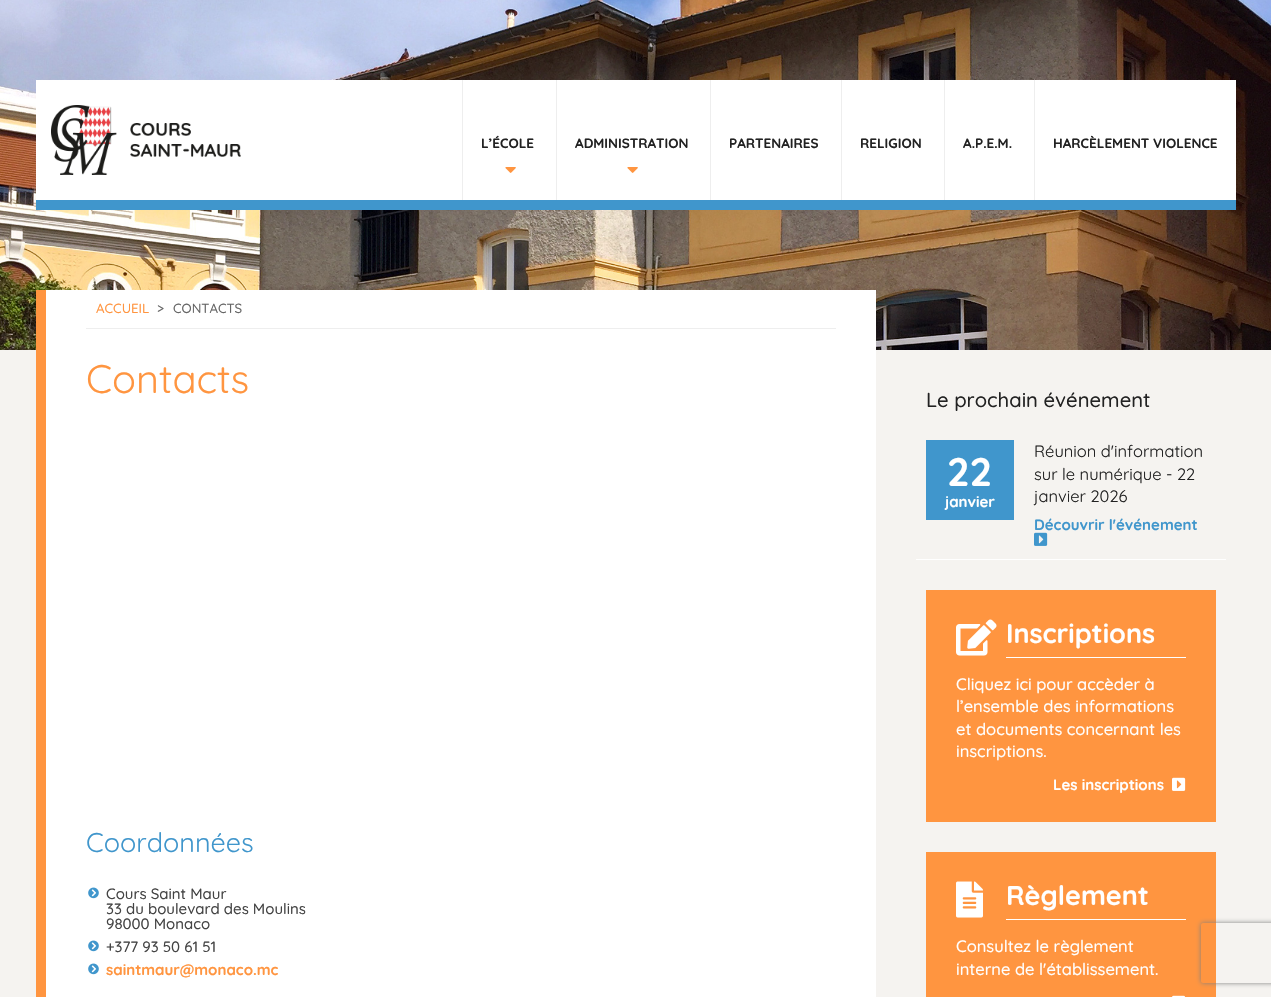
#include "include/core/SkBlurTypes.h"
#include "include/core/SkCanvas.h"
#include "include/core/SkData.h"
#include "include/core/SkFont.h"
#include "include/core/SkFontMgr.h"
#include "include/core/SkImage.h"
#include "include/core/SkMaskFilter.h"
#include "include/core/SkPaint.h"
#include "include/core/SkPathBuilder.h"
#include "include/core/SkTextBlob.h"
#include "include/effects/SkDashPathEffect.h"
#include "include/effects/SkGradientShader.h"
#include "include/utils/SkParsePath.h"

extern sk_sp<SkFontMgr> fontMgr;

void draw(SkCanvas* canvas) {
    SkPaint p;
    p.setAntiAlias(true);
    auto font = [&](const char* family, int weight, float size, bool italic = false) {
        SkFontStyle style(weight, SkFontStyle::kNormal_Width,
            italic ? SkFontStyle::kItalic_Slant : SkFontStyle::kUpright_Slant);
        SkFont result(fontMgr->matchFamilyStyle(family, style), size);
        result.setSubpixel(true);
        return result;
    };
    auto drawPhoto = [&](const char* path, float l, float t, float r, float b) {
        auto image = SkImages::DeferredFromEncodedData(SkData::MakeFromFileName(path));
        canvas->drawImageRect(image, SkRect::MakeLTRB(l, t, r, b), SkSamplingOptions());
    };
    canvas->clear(0xFFF5F3F0);
    drawPhoto("media/1.png", 0, 0, 1271, 350);
    p.setColor(0xFFFFFFFF);
    canvas->drawRect(SkRect::MakeLTRB(36, 80, 1236, 200), p);
    p.setColor(0xFF4096CC);
    canvas->drawRect(SkRect::MakeLTRB(36, 200, 1236, 210), p);
    drawPhoto("media/2.png", 51, 105, 241, 175);
    p.setColor(0xFFEEEEEE);
    canvas->drawRect(SkRect::MakeLTRB(462, 80, 463, 200), p);
    auto font1 = font("Quicksand", 700, 13.5f);
    p.setColor(0xFF222222);
    canvas->drawString("L’ÉCOLE", 481, 148, font1, p);
    drawPhoto("media/3.png", 505, 167, 516, 173);
    p.setColor(0xFFEEEEEE);
    canvas->drawRect(SkRect::MakeLTRB(556, 80, 557, 200), p);
    p.setColor(0xFF222222);
    canvas->drawString("ADMINISTRATION", 575, 148, font1, p);
    drawPhoto("media/3.png", 627, 167, 638, 173);
    p.setColor(0xFFEEEEEE);
    canvas->drawRect(SkRect::MakeLTRB(710, 80, 711, 200), p);
    p.setColor(0xFF222222);
    canvas->drawString("PARTENAIRES", 729, 148, font1, p);
    p.setColor(0xFFEEEEEE);
    canvas->drawRect(SkRect::MakeLTRB(841, 80, 842, 200), p);
    p.setColor(0xFF222222);
    canvas->drawString("RELIGION", 860, 148, font1, p);
    p.setColor(0xFFEEEEEE);
    canvas->drawRect(SkRect::MakeLTRB(944, 80, 945, 200), p);
    p.setColor(0xFF222222);
    canvas->drawString("A.P.E.M.", 963, 148, font1, p);
    p.setColor(0xFFEEEEEE);
    canvas->drawRect(SkRect::MakeLTRB(1034, 80, 1035, 200), p);
    p.setColor(0xFF222222);
    canvas->drawString("HARCÈLEMENT VIOLENCE", 1053, 148, font1, p);
    {
        const struct { float l, t, r, b; SkColor color; } items[] = {
            {46, 290, 876, 997, 0xFFFFFFFF},
            {36, 290, 46, 997, 0xFFFF9540},
            {86, 328, 836, 329, 0xFFEEEEEE},
        };
        for (auto [l, t, r, b, color] : items) {
            p.setColor(color);
            canvas->drawRect(SkRect::MakeLTRB(l, t, r, b), p);
        }
    }
    auto font2 = font("Quicksand", 500, 13.25f);
    p.setColor(0xFFFF9540);
    canvas->drawString("ACCUEIL", 96, 313, font2, p);
    p.setColor(0xFF666666);
    canvas->drawString(">", 157, 313, font2, p);
    canvas->drawString("CONTACTS", 173, 313, font2, p);
    auto font3 = font("Quicksand", 400, 39.75f);
    p.setColor(0xFFFF9540);
    canvas->drawString("Contacts", 86, 393, font3, p);
    auto font4 = font("Quicksand", 400, 27);
    p.setColor(0xFF4096CC);
    canvas->drawString("Coordonnées", 86, 852, font4, p);
    drawPhoto("media/4.png", 88, 887, 99, 899);
    auto font5 = font("Quicksand", 500, 15);
    p.setColor(0xFF444444);
    {
        const struct { const char* s; float x, y; } items[] = {
            {"Cours Saint Maur", 106, 899},
            {"33 du boulevard des Moulins", 106, 914},
            {"98000 Monaco", 106, 929},
        };
        for (auto [s, x, y] : items) {
            canvas->drawString(s, x, y, font5, p);
        }
    }
    drawPhoto("media/4.png", 88, 940, 99, 952);
    canvas->drawString("+377 93 50 61 51", 106, 952, font5, p);
    drawPhoto("media/4.png", 88, 963, 99, 975);
    auto font6 = font("Quicksand", 700, 15);
    p.setColor(0xFFFF9540);
    canvas->drawString("saintmaur@monaco.mc", 106, 975, font6, p);
    auto font7 = font("Quicksand", 500, 20.25f);
    p.setColor(0xFF222222);
    canvas->drawString("Le prochain événement", 926, 407, font7, p);
    p.setColor(0xFFFFFFFF);
    canvas->drawRect(SkRect::MakeLTRB(916, 559, 1226, 560), p);
    p.setColor(0xFF4096CC);
    canvas->drawRect(SkRect::MakeLTRB(926, 440, 1014, 520), p);
    auto font8 = font("Quicksand", 700, 39.75f);
    p.setColor(0xFFFFFFFF);
    canvas->drawString("22", 947, 486, font8, p);
    canvas->drawString("janvier", 945, 507, font6, p);
    auto font9 = font("Quicksand", 400, 16.5f);
    p.setColor(0xFF222222);
    {
        const struct { const char* s; float x, y; } items[] = {
            {"Réunion d'information", 1034, 457},
            {"sur le numérique - 22", 1034, 480},
            {"janvier 2026", 1034, 502},
        };
        for (auto [s, x, y] : items) {
            canvas->drawString(s, x, y, font9, p);
        }
    }
    p.setColor(0xFF4096CC);
    canvas->drawString("Découvrir l'événement", 1034, 530, font6, p);
    drawPhoto("media/5.png", 1034, 532, 1048, 546);
    p.setColor(0xFFFF9540);
    canvas->drawRect(SkRect::MakeLTRB(926, 590, 1216, 822), p);
    drawPhoto("media/6.png", 956, 619, 997, 656);
    p.setColor(0xFFFFFFFF);
    canvas->drawRect(SkRect::MakeLTRB(1006, 657, 1186, 658), p);
    auto font10 = font("Quicksand", 700, 27);
    canvas->drawString("Inscriptions", 1006, 643, font10, p);
    auto font11 = font("Quicksand", 500, 16.5f);
    {
        const struct { const char* s; float x, y; } items[] = {
            {"Cliquez ici pour accèder à", 956, 690},
            {"l’ensemble des informations", 956, 712},
            {"et documents concernant les", 956, 735},
            {"inscriptions.", 956, 757},
        };
        for (auto [s, x, y] : items) {
            canvas->drawString(s, x, y, font11, p);
        }
    }
    canvas->drawString("Les inscriptions", 1053, 790, font6, p);
    drawPhoto("media/7.png", 1172, 777, 1186, 791);
    p.setColor(0xFFFF9540);
    canvas->drawRect(SkRect::MakeLTRB(926, 852, 1216, 997), p);
    drawPhoto("media/8.png", 956, 881, 983, 918);
    p.setColor(0xFFFFFFFF);
    canvas->drawRect(SkRect::MakeLTRB(1006, 919, 1186, 920), p);
    canvas->drawString("Règlement", 1006, 905, font10, p);
    canvas->drawString("Consultez le règlement", 956, 952, font11, p);
    canvas->drawString("interne de l'établissement.", 956, 975, font11, p);
    drawPhoto("media/9.png", 1172, 995, 1185, 997);
    canvas->save();
    canvas->clipPath(SkPathBuilder(SkPathFillType::kEvenOdd).moveTo(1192, 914).lineTo(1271, 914).lineTo(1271, 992).lineTo(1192, 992).close().moveTo(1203, 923).lineTo(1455, 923).cubicTo(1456, 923, 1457, 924, 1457, 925).lineTo(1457, 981).cubicTo(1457, 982, 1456, 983, 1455, 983).lineTo(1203, 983).cubicTo(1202, 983, 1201, 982, 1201, 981).lineTo(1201, 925).cubicTo(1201, 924, 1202, 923, 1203, 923).close().detach(), true);
    p.setColor(0xFF808080);
    p.setMaskFilter(SkMaskFilter::MakeBlur(kNormal_SkBlurStyle, 2.5f));
    canvas->drawRoundRect(SkRect::MakeLTRB(1201, 923, 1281, 983), 2, 2, p);
    p.setMaskFilter(nullptr);
    canvas->restore();
}
